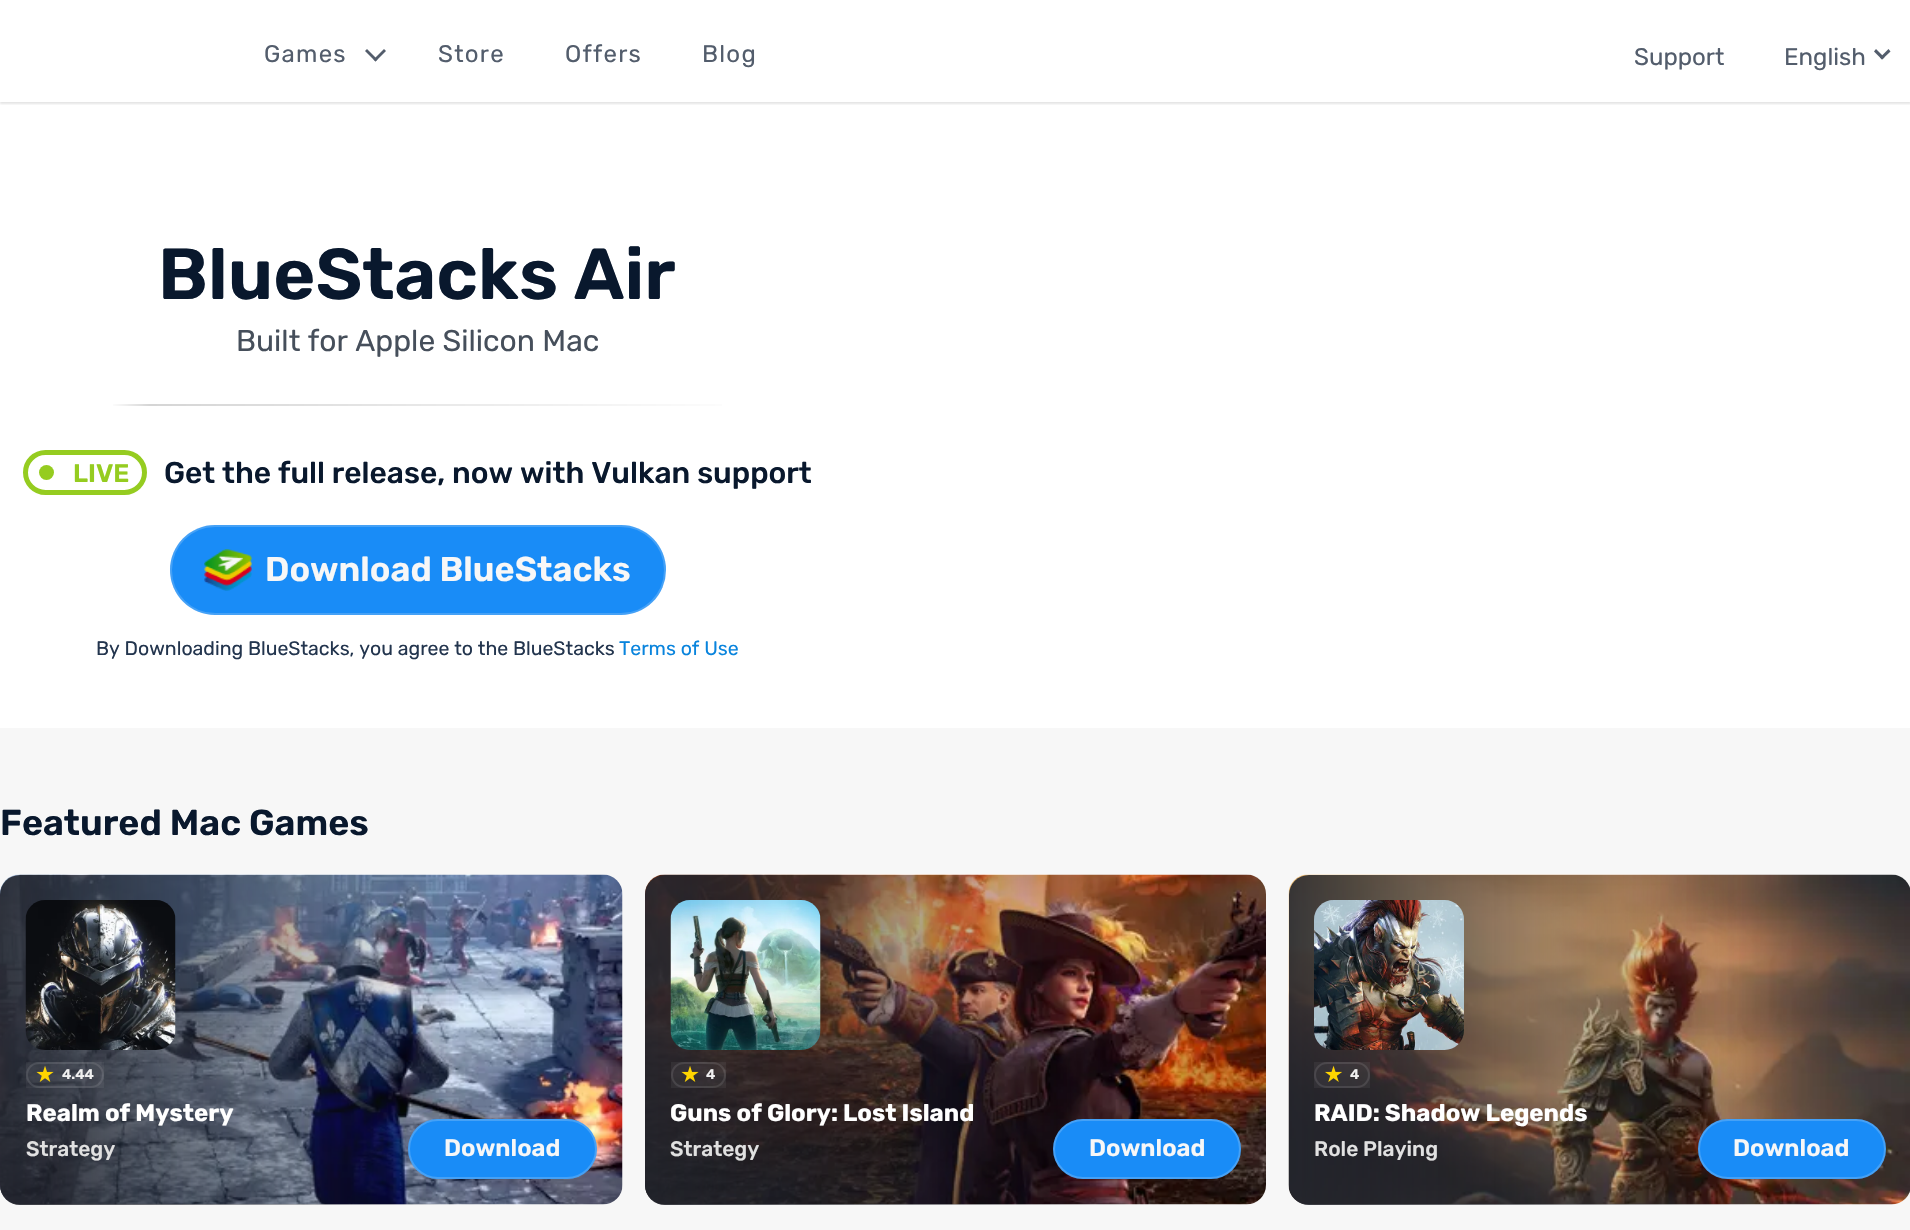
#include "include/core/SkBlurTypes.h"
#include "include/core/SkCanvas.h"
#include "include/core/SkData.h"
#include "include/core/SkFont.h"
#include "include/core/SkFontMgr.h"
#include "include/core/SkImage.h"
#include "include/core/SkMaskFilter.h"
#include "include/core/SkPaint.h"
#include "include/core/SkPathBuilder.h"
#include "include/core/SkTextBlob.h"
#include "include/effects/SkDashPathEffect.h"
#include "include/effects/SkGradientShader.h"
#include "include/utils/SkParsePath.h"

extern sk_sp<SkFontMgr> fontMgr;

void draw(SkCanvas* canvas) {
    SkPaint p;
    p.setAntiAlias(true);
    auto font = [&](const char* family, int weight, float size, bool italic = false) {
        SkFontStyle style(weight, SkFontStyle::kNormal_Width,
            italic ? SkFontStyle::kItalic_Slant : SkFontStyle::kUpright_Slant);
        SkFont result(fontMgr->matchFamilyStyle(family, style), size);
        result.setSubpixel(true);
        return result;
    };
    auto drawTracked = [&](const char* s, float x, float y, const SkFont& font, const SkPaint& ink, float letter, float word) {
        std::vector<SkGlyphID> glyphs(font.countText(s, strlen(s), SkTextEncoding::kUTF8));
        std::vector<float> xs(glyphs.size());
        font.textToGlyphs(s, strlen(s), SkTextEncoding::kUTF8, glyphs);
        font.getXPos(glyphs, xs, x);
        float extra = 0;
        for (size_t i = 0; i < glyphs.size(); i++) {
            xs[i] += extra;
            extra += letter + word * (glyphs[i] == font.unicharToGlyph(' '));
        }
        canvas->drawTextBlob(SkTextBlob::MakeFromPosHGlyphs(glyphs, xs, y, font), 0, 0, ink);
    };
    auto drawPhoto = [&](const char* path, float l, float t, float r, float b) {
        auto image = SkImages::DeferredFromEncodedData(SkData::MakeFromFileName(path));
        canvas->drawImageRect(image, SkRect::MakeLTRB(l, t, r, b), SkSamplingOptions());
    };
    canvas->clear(0xFFFFFFFF);
    canvas->save();
    canvas->clipRect(SkRect::MakeLTRB(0, 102, 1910, 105));
    p.setColor(0x1A000000);
    p.setMaskFilter(SkMaskFilter::MakeBlur(kNormal_SkBlurStyle, 1));
    canvas->drawRect(SkRect::MakeLTRB(0, 2, 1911, 104), p);
    p.setMaskFilter(nullptr);
    canvas->restore();
    auto font1 = font("Rubik", 400, 24);
    p.setColor(0xFF535D6C);
    drawTracked("Games", 264, 62, font1, p, 1.25f, 0);
    canvas->drawPath(SkPathBuilder().moveTo(384, 49).lineTo(386, 51).lineTo(375.5f, 61.5f).lineTo(373.5f, 59.5f).close().detach(), p);
    canvas->drawPath(SkPathBuilder().moveTo(367, 49).lineTo(377.5f, 59.5f).lineTo(375.5f, 61.5f).lineTo(365, 51).close().detach(), p);
    {
        const struct { const char* s; float x, y; } items[] = {
            {"Store", 438, 62},
            {"Offers", 565, 62},
            {"Blog", 702, 62},
        };
        for (auto [s, x, y] : items) {
            drawTracked(s, x, y, font1, p, 1.25f, 0);
        }
    }
    canvas->drawString("Support", 1634, 65, font1, p);
    canvas->drawString("English", 1784, 65, font1, p);
    canvas->drawPath(SkPathBuilder().moveTo(1888.5f, 49).lineTo(1890.5f, 51.5f).lineTo(1882, 59.5f).lineTo(1880, 57.5f).close().detach(), p);
    canvas->drawPath(SkPathBuilder().moveTo(1876, 49).lineTo(1884.5f, 57.5f).lineTo(1882, 59.5f).lineTo(1874, 51.5f).close().detach(), p);
    auto font2 = font("Rubik", 600, 72);
    p.setColor(0xFF09182D);
    canvas->drawString("BlueStacks Air", 158, 299, font2, p);
    auto font3 = font("Rubik", 400, 30);
    p.setColor(0xFF464F5B);
    canvas->drawString("Built for Apple Silicon Mac", 236, 351, font3, p);
    {
        const SkColor colors[] = {0xFFFCFCFC, 0xFFD5D5D5, 0xFFFCFCFC};
        const float stops[] = {0, 0.06f, 1};
        const SkPoint ends[] = {{113, 404}, {722, 404}};
        p.setShader(SkGradientShader::MakeLinear(ends, colors, stops, 3, SkTileMode::kClamp));
        p.setAlpha(255);
    }
    canvas->drawRect(SkRect::MakeLTRB(113, 404, 722, 406), p);
    p.setStyle(SkPaint::kStroke_Style);
    p.setStrokeWidth(5);
    p.setShader(nullptr);
    p.setColor(0xFF95CC20);
    canvas->drawRoundRect(SkRect::MakeLTRB(25.5f, 452.5f, 144.5f, 492.5f), 20, 20, p);
    p.setStyle(SkPaint::kFill_Style);
    canvas->drawCircle(46.5f, 472.5f, 7.5f, p);
    auto font4 = font("Rubik", 600, 25.5f);
    canvas->drawString("LIVE", 73, 482, font4, p);
    auto font5 = font("Rubik", 500, 30);
    p.setColor(0xFF09182D);
    canvas->drawString("Get the full release, now with Vulkan support", 164, 483, font5, p);
    p.setColor(0xFF198CF7);
    canvas->drawRoundRect(SkRect::MakeLTRB(170, 525, 666, 615), 45, 45, p);
    p.setStyle(SkPaint::kStroke_Style);
    p.setStrokeWidth(2);
    p.setColor(0x33F7F7F7);
    canvas->drawRoundRect(SkRect::MakeLTRB(171, 526, 665, 614), 44, 44, p);
    drawPhoto("media/1.png", 204, 549, 252, 591);
    auto font6 = font("Rubik", 600, 34.4f);
    p.setStyle(SkPaint::kFill_Style);
    p.setColor(0xFFF7F7F7);
    canvas->drawString("Download BlueStacks", 265, 581, font6, p);
    auto font7 = font("Rubik", 400, 19.5f);
    p.setColor(0xFF23354E);
    canvas->drawString("By Downloading BlueStacks, you agree to the BlueStacks", 96, 655, font7, p);
    p.setColor(0xFF0984DD);
    canvas->drawString("Terms of Use", 619, 655, font7, p);
    p.setColor(0xFFF7F7F7);
    canvas->drawRect(SkRect::MakeLTRB(0, 728, 1910, 1230), p);
    auto font8 = font("Rubik", 600, 36);
    p.setColor(0xFF09182D);
    canvas->drawString("Featured Mac Games", 0, 835, font8, p);
    drawPhoto("media/2.png", 0, 874, 623, 1205);
    {
        const SkColor colors[] = {0xE623252D, 0x0023252D};
        const float stops[] = {0, 0.74f};
        const SkPoint ends[] = {{0, 1040}, {623, 1040}};
        p.setShader(SkGradientShader::MakeLinear(ends, colors, stops, 2, SkTileMode::kClamp));
        p.setAlpha(255);
    }
    canvas->drawRoundRect(SkRect::MakeLTRB(0, 875, 623, 1205), 20, 20, p);
    drawPhoto("media/3.png", 25, 900, 176, 1050);
    p.setShader(nullptr);
    p.setColor(0x0DFFFFFF);
    canvas->drawRect(SkRect::MakeLTRB(26, 1062, 104, 1088), p);
    p.setStyle(SkPaint::kStroke_Style);
    p.setColor(0x1AFFFFFF);
    canvas->drawRoundRect(SkRect::MakeLTRB(27, 1063, 103, 1087), 12, 12, p);
    drawPhoto("media/4.png", 36, 1066, 54, 1082);
    auto font9 = font("Rubik", 600, 14);
    p.setStyle(SkPaint::kFill_Style);
    p.setColor(0xFFF0F0F0);
    canvas->drawString("4.44", 62, 1079, font9, p);
    auto font10 = font("Rubik", 700, 24);
    p.setColor(0xFFFFFFFF);
    canvas->drawString("Realm of Mystery", 26, 1121, font10, p);
    auto font11 = font("Rubik", 500, 21);
    p.setColor(0xFFE1E1E1);
    canvas->drawString("Strategy", 26, 1156, font11, p);
    p.setColor(0xFF198CF7);
    canvas->drawRoundRect(SkRect::MakeLTRB(408, 1119, 597, 1179), 30, 30, p);
    p.setStyle(SkPaint::kStroke_Style);
    p.setColor(0x33F7F7F7);
    canvas->drawRoundRect(SkRect::MakeLTRB(409, 1120, 596, 1178), 29, 29, p);
    auto font12 = font("Rubik", 600, 24);
    p.setStyle(SkPaint::kFill_Style);
    p.setColor(0xFFF7F7F7);
    canvas->drawString("Download", 444, 1156, font12, p);
    drawPhoto("media/5.png", 645, 874, 1266, 1205);
    {
        const SkColor colors[] = {0xE623252D, 0x0023252D};
        const float stops[] = {0, 0.74f};
        const SkPoint ends[] = {{645, 1040}, {1266, 1040}};
        p.setShader(SkGradientShader::MakeLinear(ends, colors, stops, 2, SkTileMode::kClamp));
        p.setAlpha(255);
    }
    canvas->drawRoundRect(SkRect::MakeLTRB(645, 875, 1266, 1205), 20, 20, p);
    drawPhoto("media/6.png", 670, 900, 821, 1050);
    p.setShader(nullptr);
    p.setColor(0x0DFFFFFF);
    canvas->drawRect(SkRect::MakeLTRB(671, 1062, 726, 1088), p);
    p.setStyle(SkPaint::kStroke_Style);
    p.setColor(0x1AFFFFFF);
    canvas->drawRoundRect(SkRect::MakeLTRB(672, 1063, 725, 1087), 12, 12, p);
    drawPhoto("media/7.png", 681, 1066, 699, 1082);
    p.setStyle(SkPaint::kFill_Style);
    p.setColor(0xFFF0F0F0);
    canvas->drawString("4", 706, 1079, font9, p);
    p.setColor(0xFFFFFFFF);
    canvas->drawString("Guns of Glory: Lost Island", 670, 1121, font10, p);
    p.setColor(0xFFE1E1E1);
    canvas->drawString("Strategy", 670, 1156, font11, p);
    p.setColor(0xFF198CF7);
    canvas->drawRoundRect(SkRect::MakeLTRB(1053, 1119, 1241, 1179), 30, 30, p);
    p.setStyle(SkPaint::kStroke_Style);
    p.setColor(0x33F7F7F7);
    canvas->drawRoundRect(SkRect::MakeLTRB(1054, 1120, 1240, 1178), 29, 29, p);
    p.setStyle(SkPaint::kFill_Style);
    p.setColor(0xFFF7F7F7);
    canvas->drawString("Download", 1089, 1156, font12, p);
    drawPhoto("media/8.png", 1288, 874, 1910, 1205);
    {
        const SkColor colors[] = {0xE623252D, 0x0023252D};
        const float stops[] = {0, 0.74f};
        const SkPoint ends[] = {{1289, 1040}, {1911, 1040}};
        p.setShader(SkGradientShader::MakeLinear(ends, colors, stops, 2, SkTileMode::kClamp));
        p.setAlpha(255);
    }
    canvas->drawRoundRect(SkRect::MakeLTRB(1289, 875, 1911, 1205), 20, 20, p);
    drawPhoto("media/9.png", 1314, 900, 1464, 1050);
    p.setShader(nullptr);
    p.setColor(0x0DFFFFFF);
    canvas->drawRect(SkRect::MakeLTRB(1314, 1062, 1370, 1088), p);
    p.setStyle(SkPaint::kStroke_Style);
    p.setColor(0x1AFFFFFF);
    canvas->drawRoundRect(SkRect::MakeLTRB(1315, 1063, 1369, 1087), 12, 12, p);
    drawPhoto("media/10.png", 1325, 1065, 1342, 1082);
    p.setStyle(SkPaint::kFill_Style);
    p.setColor(0xFFF0F0F0);
    canvas->drawString("4", 1350, 1079, font9, p);
    p.setColor(0xFFFFFFFF);
    canvas->drawString("RAID: Shadow Legends", 1314, 1121, font10, p);
    p.setColor(0xFFE1E1E1);
    canvas->drawString("Role Playing", 1314, 1156, font11, p);
    p.setColor(0xFF198CF7);
    canvas->drawRoundRect(SkRect::MakeLTRB(1698, 1119, 1886, 1179), 30, 30, p);
    p.setStyle(SkPaint::kStroke_Style);
    p.setColor(0x33F7F7F7);
    canvas->drawRoundRect(SkRect::MakeLTRB(1699, 1120, 1885, 1178), 29, 29, p);
    p.setStyle(SkPaint::kFill_Style);
    p.setColor(0xFFF7F7F7);
    canvas->drawString("Download", 1733, 1156, font12, p);
}
